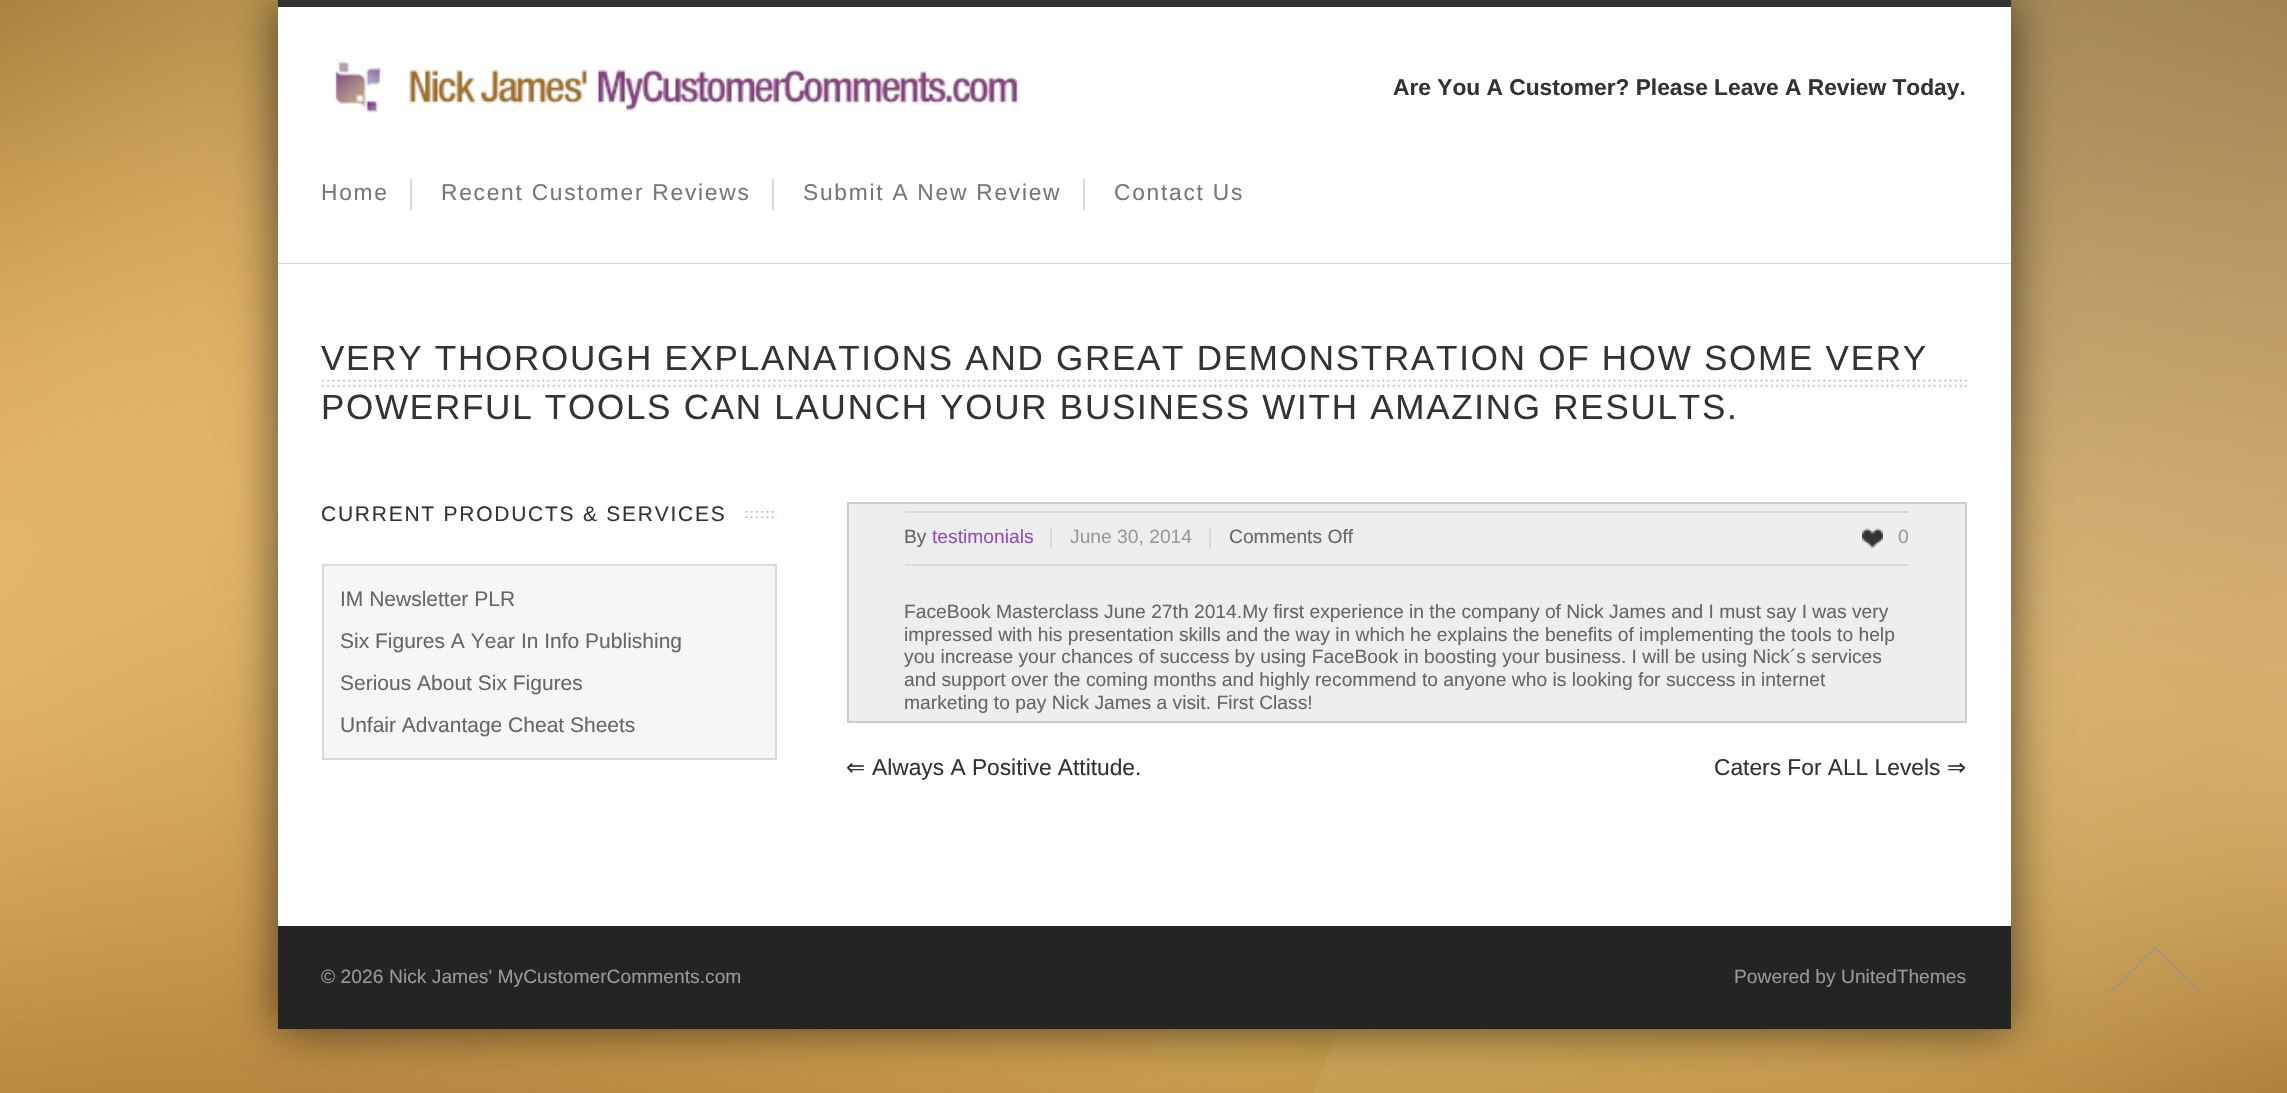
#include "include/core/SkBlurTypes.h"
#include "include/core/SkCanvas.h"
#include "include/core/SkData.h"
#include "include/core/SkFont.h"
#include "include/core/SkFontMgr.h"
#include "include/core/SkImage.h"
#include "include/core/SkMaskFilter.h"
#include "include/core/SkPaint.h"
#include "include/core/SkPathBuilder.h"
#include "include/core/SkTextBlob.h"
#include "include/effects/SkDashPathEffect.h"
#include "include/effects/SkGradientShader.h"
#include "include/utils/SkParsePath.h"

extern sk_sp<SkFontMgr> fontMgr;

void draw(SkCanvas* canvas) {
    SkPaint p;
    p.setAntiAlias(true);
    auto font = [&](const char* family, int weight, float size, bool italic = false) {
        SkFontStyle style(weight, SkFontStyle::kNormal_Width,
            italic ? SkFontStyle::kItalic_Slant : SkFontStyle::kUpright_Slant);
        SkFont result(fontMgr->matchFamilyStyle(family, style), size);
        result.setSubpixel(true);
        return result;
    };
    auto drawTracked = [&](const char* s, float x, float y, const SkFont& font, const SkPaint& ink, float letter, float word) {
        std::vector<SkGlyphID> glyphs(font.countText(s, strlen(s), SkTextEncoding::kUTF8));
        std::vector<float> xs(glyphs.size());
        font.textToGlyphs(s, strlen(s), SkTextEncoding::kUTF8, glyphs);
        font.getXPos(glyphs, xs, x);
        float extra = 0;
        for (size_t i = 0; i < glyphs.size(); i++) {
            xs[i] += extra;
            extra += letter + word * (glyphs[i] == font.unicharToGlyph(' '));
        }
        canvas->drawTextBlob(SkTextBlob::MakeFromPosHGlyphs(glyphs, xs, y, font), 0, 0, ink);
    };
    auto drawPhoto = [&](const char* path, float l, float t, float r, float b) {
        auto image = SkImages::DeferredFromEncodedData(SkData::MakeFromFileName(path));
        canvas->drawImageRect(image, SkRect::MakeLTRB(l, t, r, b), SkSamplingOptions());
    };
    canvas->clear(0xFFFFFFFF);
    drawPhoto("media/1.png", 0, 0, 2287, 1093);
    p.setColor(0x99000000);
    p.setMaskFilter(SkMaskFilter::MakeBlur(kNormal_SkBlurStyle, 22));
    canvas->drawRect(SkRect::MakeLTRB(278, 0, 2011, 1029), p);
    p.setMaskFilter(nullptr);
    p.setColor(0xFFFFFFFF);
    canvas->drawRect(SkRect::MakeLTRB(278, 7, 2011, 926), p);
    p.setColor(0xFF333333);
    canvas->drawRect(SkRect::MakeLTRB(278, 0, 2011, 7), p);
    drawPhoto("media/2.png", 335, 61, 1018, 113);
    auto font1 = font("Liberation Sans", 700, 22.75f);
    canvas->drawString("Are You A Customer? Please Leave A Review Today.", 1393, 95, font1, p);
    p.setColor(0xFFD9D9D9);
    canvas->drawRect(SkRect::MakeLTRB(278, 263, 2011, 264), p);
    auto font2 = font("Liberation Sans", 400, 22.75f);
    p.setColor(0xFF777777);
    drawTracked("Home", 321, 200, font2, p, 1.75f, 0);
    p.setColor(0xFFD9D9D9);
    canvas->drawRect(SkRect::MakeLTRB(410, 179, 412, 210), p);
    p.setColor(0xFF777777);
    drawTracked("Recent Customer Reviews", 441, 200, font2, p, 1.75f, 0);
    p.setColor(0xFFD9D9D9);
    canvas->drawRect(SkRect::MakeLTRB(772, 179, 774, 210), p);
    p.setColor(0xFF777777);
    drawTracked("Submit A New Review", 803, 200, font2, p, 1.75f, 0);
    p.setColor(0xFFD9D9D9);
    canvas->drawRect(SkRect::MakeLTRB(1083, 179, 1085, 210), p);
    p.setColor(0xFF777777);
    drawTracked("Contact Us", 1114, 200, font2, p, 1.75f, 0);
    drawPhoto("media/3.png", 322, 379, 1967, 387);
    auto font3 = font("Liberation Sans", 400, 35);
    p.setColor(0xFF333333);
    drawTracked("VERY THOROUGH EXPLANATIONS AND GREAT DEMONSTRATION OF HOW SOME VERY", 321, 370, font3, p, 1.75f, 0);
    drawTracked("POWERFUL TOOLS CAN LAUNCH YOUR BUSINESS WITH AMAZING RESULTS.", 321, 419, font3, p, 1.75f, 0);
    drawPhoto("media/4.png", 745, 511, 777, 518);
    auto font4 = font("Liberation Sans", 400, 21);
    drawTracked("CURRENT PRODUCTS & SERVICES", 321, 521, font4, p, 1.75f, 0);
    p.setColor(0xFFF6F6F5);
    canvas->drawRect(SkRect::MakeLTRB(323, 565, 776, 759), p);
    p.setStyle(SkPaint::kStroke_Style);
    p.setStrokeWidth(2);
    p.setColor(0xFFD9D9D9);
    canvas->drawRect(SkRect::MakeLTRB(323, 565, 776, 759), p);
    p.setStyle(SkPaint::kFill_Style);
    p.setColor(0xFF666666);
    {
        const struct { const char* s; float x, y; } items[] = {
            {"IM Newsletter PLR", 340, 606},
            {"Six Figures A Year In Info Publishing", 340, 648},
            {"Serious About Six Figures", 340, 690},
            {"Unfair Advantage Cheat Sheets", 340, 732},
        };
        for (auto [s, x, y] : items) {
            canvas->drawString(s, x, y, font4, p);
        }
    }
    p.setColor(0xFFEEEEEE);
    canvas->drawRect(SkRect::MakeLTRB(848, 503, 1966, 722), p);
    p.setStyle(SkPaint::kStroke_Style);
    p.setColor(0xFFCCCCCC);
    canvas->drawRect(SkRect::MakeLTRB(848, 503, 1966, 722), p);
    p.setStyle(SkPaint::kFill_Style);
    p.setColor(0xFFD9D9D9);
    canvas->drawRect(SkRect::MakeLTRB(905, 511, 1909, 513), p);
    canvas->drawRect(SkRect::MakeLTRB(905, 564, 1909, 566), p);
    auto font5 = font("Liberation Sans", 400, 19.25f);
    p.setColor(0xFF666666);
    canvas->drawString("By", 904, 543, font5, p);
    p.setColor(0xFF8F4EC2);
    canvas->drawString("testimonials", 932, 543, font5, p);
    p.setColor(0xFFD9D9D9);
    canvas->drawRect(SkRect::MakeLTRB(1050, 527, 1052, 548), p);
    p.setColor(0xFF999999);
    canvas->drawString("June 30, 2014", 1070, 543, font5, p);
    p.setColor(0xFFD9D9D9);
    canvas->drawRect(SkRect::MakeLTRB(1209, 527, 1211, 548), p);
    p.setColor(0xFF666666);
    canvas->drawString("Comments Off", 1229, 543, font5, p);
    drawPhoto("media/5.png", 1862, 528, 1883, 548);
    p.setColor(0xFF999999);
    canvas->drawString("0", 1898, 543, font5, p);
    p.setColor(0xFF666666);
    {
        const struct { const char* s; float x, y; } items[] = {
            {"FaceBook Masterclass June 27th 2014.My first experience in the company of Nick James and I must say I was very", 904, 618},
            {"impressed with his presentation skills and the way in which he explains the benefits of implementing the tools to help", 904, 641},
            {"you increase your chances of success by using FaceBook in boosting your business. I will be using Nick´s services", 904, 663},
            {"and support over the coming months and highly recommend to anyone who is looking for success in internet", 904, 686},
            {"marketing to pay Nick James a visit. First Class!", 904, 709},
        };
        for (auto [s, x, y] : items) {
            canvas->drawString(s, x, y, font5, p);
        }
    }
    auto font6 = font("DejaVu Sans", 400, 22.75f);
    p.setColor(0xFF333333);
    canvas->drawString("⇐", 846, 775, font6, p);
    canvas->drawString("Always A Positive Attitude.", 872, 775, font2, p);
    canvas->drawString("Caters For ALL Levels", 1714, 775, font2, p);
    canvas->drawString("⇒", 1947, 775, font6, p);
    p.setColor(0xFF242424);
    canvas->drawRect(SkRect::MakeLTRB(278, 926, 2011, 1029), p);
    p.setColor(0xFF999999);
    {
        const struct { const char* s; float x, y; } items[] = {
            {"© 2026", 321, 983},
            {"Nick James' MyCustomerComments.com", 389, 983},
            {"Powered by", 1734, 983},
            {"UnitedThemes", 1841, 983},
        };
        for (auto [s, x, y] : items) {
            canvas->drawString(s, x, y, font5, p);
        }
    }
    drawPhoto("media/6.png", 2110, 946, 2200, 993);
}
